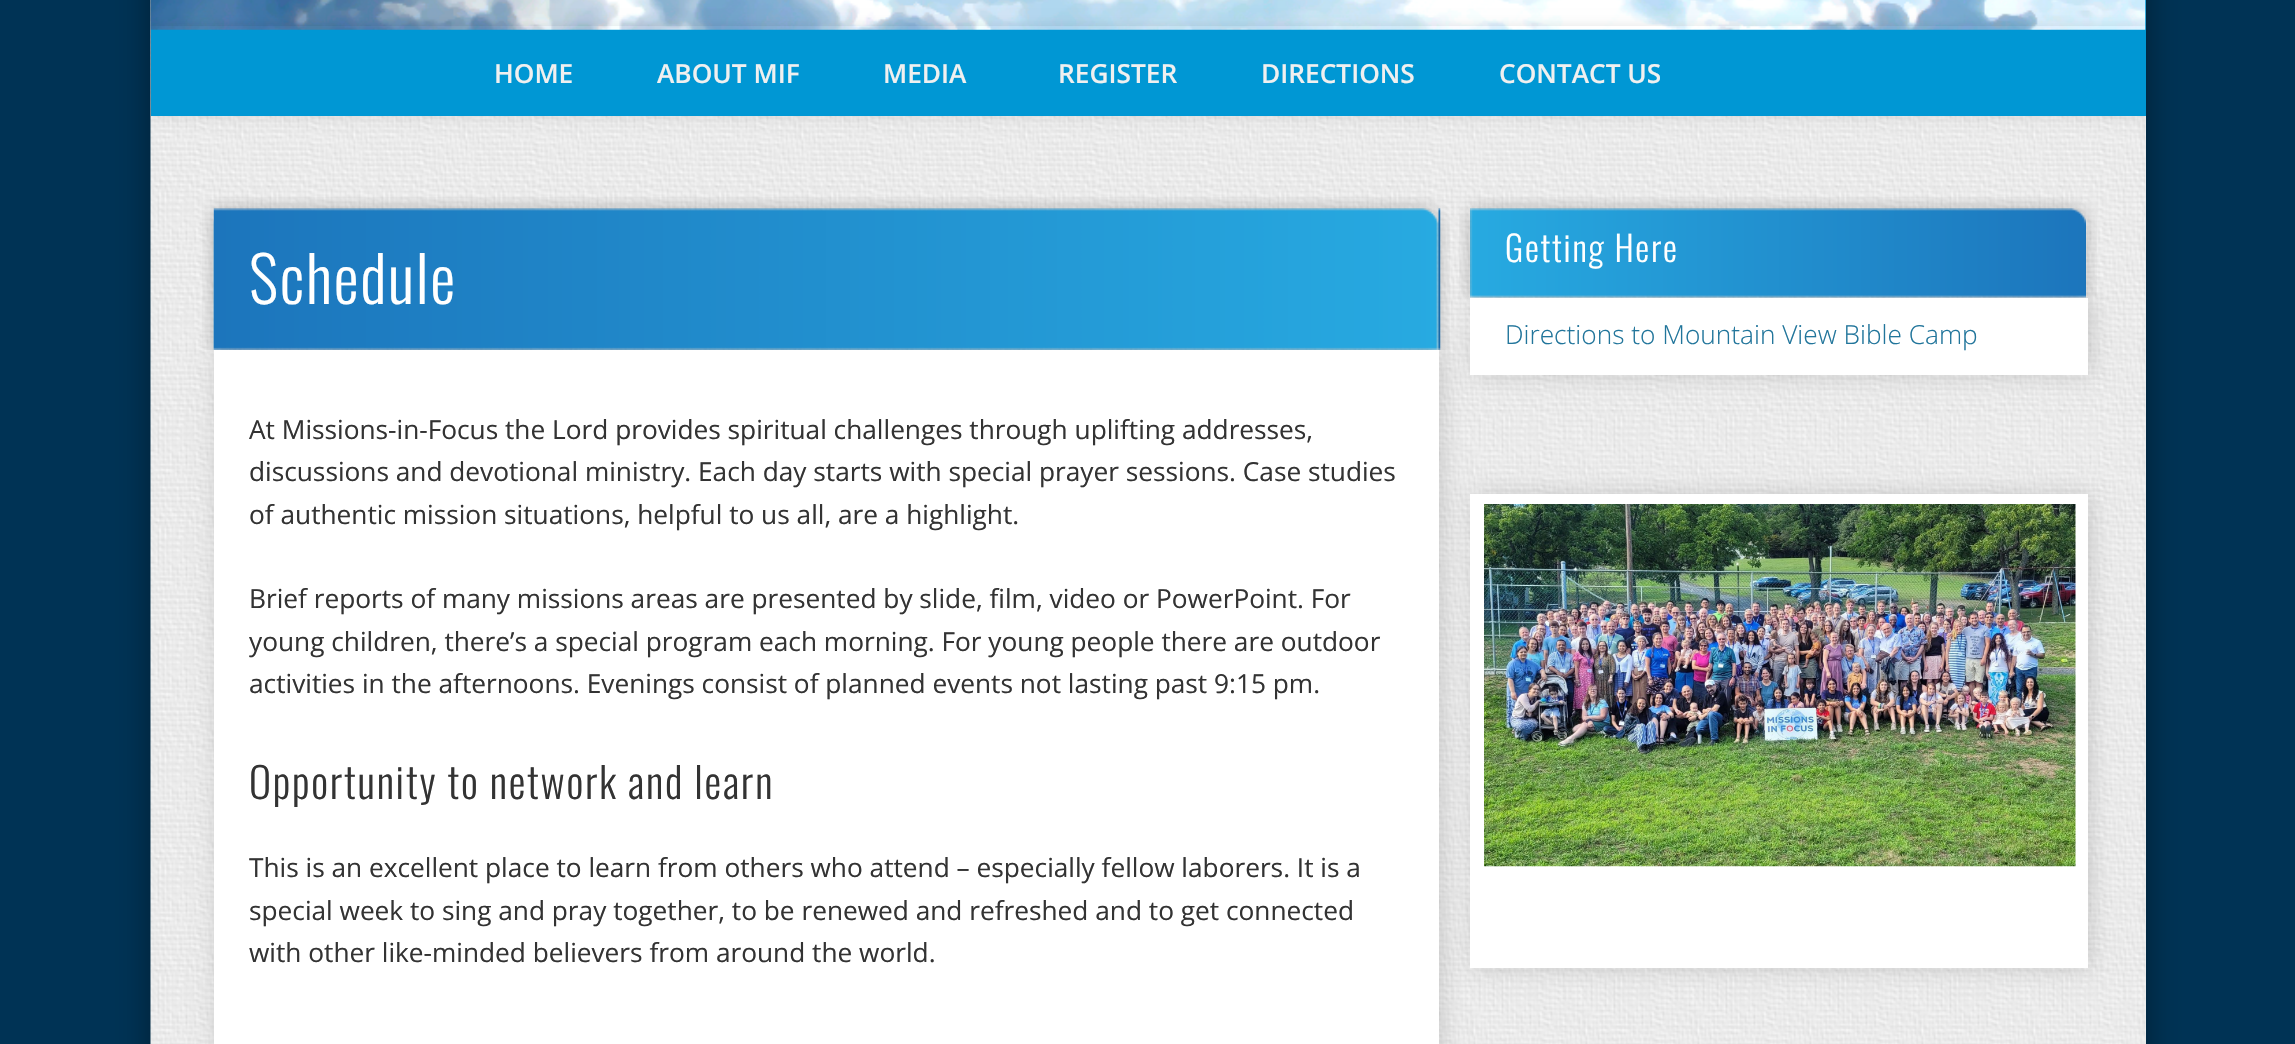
#include "include/core/SkBlurTypes.h"
#include "include/core/SkCanvas.h"
#include "include/core/SkData.h"
#include "include/core/SkFont.h"
#include "include/core/SkFontMgr.h"
#include "include/core/SkImage.h"
#include "include/core/SkMaskFilter.h"
#include "include/core/SkPaint.h"
#include "include/core/SkPathBuilder.h"
#include "include/core/SkTextBlob.h"
#include "include/effects/SkDashPathEffect.h"
#include "include/effects/SkGradientShader.h"
#include "include/utils/SkParsePath.h"

extern sk_sp<SkFontMgr> fontMgr;

void draw(SkCanvas* canvas) {
    SkPaint p;
    p.setAntiAlias(true);
    auto font = [&](const char* family, int weight, float size, bool italic = false) {
        SkFontStyle style(weight, SkFontStyle::kNormal_Width,
            italic ? SkFontStyle::kItalic_Slant : SkFontStyle::kUpright_Slant);
        SkFont result(fontMgr->matchFamilyStyle(family, style), size);
        result.setSubpixel(true);
        return result;
    };
    auto drawTracked = [&](const char* s, float x, float y, const SkFont& font, const SkPaint& ink, float letter, float word) {
        std::vector<SkGlyphID> glyphs(font.countText(s, strlen(s), SkTextEncoding::kUTF8));
        std::vector<float> xs(glyphs.size());
        font.textToGlyphs(s, strlen(s), SkTextEncoding::kUTF8, glyphs);
        font.getXPos(glyphs, xs, x);
        float extra = 0;
        for (size_t i = 0; i < glyphs.size(); i++) {
            xs[i] += extra;
            extra += letter + word * (glyphs[i] == font.unicharToGlyph(' '));
        }
        canvas->drawTextBlob(SkTextBlob::MakeFromPosHGlyphs(glyphs, xs, y, font), 0, 0, ink);
    };
    auto drawPhoto = [&](const char* path, float l, float t, float r, float b) {
        auto image = SkImages::DeferredFromEncodedData(SkData::MakeFromFileName(path));
        canvas->drawImageRect(image, SkRect::MakeLTRB(l, t, r, b), SkSamplingOptions());
    };
    canvas->clear(0xFF003355);
    p.setColor(0x66000000);
    p.setMaskFilter(SkMaskFilter::MakeBlur(kNormal_SkBlurStyle, 16));
    canvas->drawRect(SkRect::MakeLTRB(151, -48, 2146, 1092), p);
    p.setMaskFilter(nullptr);
    p.setColor(0xFFEFEFEF);
    canvas->drawRect(SkRect::MakeLTRB(2145, 116, 2146, 1044), p);
    drawPhoto("media/1.png", 150, 0, 2146, 1044);
    p.setColor(0xFF0097D4);
    canvas->drawRect(SkRect::MakeLTRB(151, 0, 2146, 116), p);
    drawPhoto("media/2.png", 150, 0, 2146, 30);
    canvas->save();
    canvas->clipRect(SkRect::MakeLTRB(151, 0, 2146, 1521));
    canvas->clipPath(SkPathBuilder(SkPathFillType::kEvenOdd).moveTo(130, 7).lineTo(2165, 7).lineTo(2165, 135).lineTo(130, 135).close().moveTo(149, 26).lineTo(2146, 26).lineTo(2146, 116).lineTo(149, 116).close().detach(), true);
    p.setColor(0x1A000000);
    p.setMaskFilter(SkMaskFilter::MakeBlur(kNormal_SkBlurStyle, 6));
    canvas->drawRect(SkRect::MakeLTRB(149, 26, 2146, 116), p);
    p.setMaskFilter(nullptr);
    canvas->restore();
    auto font1 = font("Open Sans", 600, 26.25f);
    p.setColor(0xFFF0F0F0);
    {
        const struct { const char* s; float x, y; } items[] = {
            {"HOME", 494, 83},
            {"ABOUT MIF", 657, 83},
            {"MEDIA", 883, 83},
            {"REGISTER", 1058, 83},
            {"DIRECTIONS", 1261, 83},
            {"CONTACT US", 1499, 83},
        };
        for (auto [s, x, y] : items) {
            canvas->drawString(s, x, y, font1, p);
        }
    }
    p.setColor(0x26000000);
    p.setMaskFilter(SkMaskFilter::MakeBlur(kNormal_SkBlurStyle, 10.5f));
    canvas->drawRect(SkRect::MakeLTRB(217, 350, 1442, 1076), p);
    p.setMaskFilter(nullptr);
    p.setColor(0xFFFFFFFF);
    canvas->drawRect(SkRect::MakeLTRB(214, 350, 1439, 1044), p);
    drawPhoto("media/3.png", 213, 208, 1441, 350);
    auto font2 = font("Oswald", 300, 63);
    drawTracked("Schedule", 249, 304, font2, p, 1.75f, 0);
    p.setColor(0x26000000);
    p.setMaskFilter(SkMaskFilter::MakeBlur(kNormal_SkBlurStyle, 10.5f));
    canvas->drawRect(SkRect::MakeLTRB(1474, 298, 2091, 375), p);
    p.setMaskFilter(nullptr);
    drawPhoto("media/4.png", 202, 197, 1450, 350);
    auto font3 = font("Open Sans", 400, 26.25f);
    p.setColor(0xFF333333);
    {
        const struct { const char* s; float x, y; } items[] = {
            {"At Missions-in-Focus the Lord provides spiritual challenges through uplifting addresses,", 249, 439},
            {"discussions and devotional ministry. Each day starts with special prayer sessions. Case studies", 249, 481},
            {"of authentic mission situations, helpful to us all, are a highlight.", 249, 524},
            {"Brief reports of many missions areas are presented by slide, film, video or PowerPoint. For", 249, 608},
            {"young children, there’s a special program each morning. For young people there are outdoor", 249, 651},
            {"activities in the afternoons. Evenings consist of planned events not lasting past 9:15 pm.", 249, 693},
        };
        for (auto [s, x, y] : items) {
            canvas->drawString(s, x, y, font3, p);
        }
    }
    auto font4 = font("Oswald", 300, 42);
    drawTracked("Opportunity to network and learn", 249, 799, font4, p, 1.75f, 0);
    {
        const struct { const char* s; float x, y; } items[] = {
            {"This is an excellent place to learn from others who attend – especially fellow laborers. It is a", 249, 877},
            {"special week to sing and pray together, to be renewed and refreshed and to get connected", 249, 920},
            {"with other like-minded believers from around the world.", 249, 962},
        };
        for (auto [s, x, y] : items) {
            canvas->drawString(s, x, y, font3, p);
        }
    }
    p.setColor(0xFFFFFFFF);
    canvas->drawRect(SkRect::MakeLTRB(1470, 298, 2088, 375), p);
    drawPhoto("media/5.png", 1470, 208, 2086, 298);
    auto font5 = font("Oswald", 300, 35);
    drawTracked("Getting Here", 1505, 262, font5, p, 1.75f, 0);
    drawPhoto("media/6.png", 1459, 197, 2097, 298);
    auto font6 = font("Open Sans", 300, 26.25f);
    p.setColor(0xFF21759B);
    canvas->drawString("Directions to Mountain View Bible Camp", 1505, 344, font6, p);
    p.setColor(0x26000000);
    p.setMaskFilter(SkMaskFilter::MakeBlur(kNormal_SkBlurStyle, 10.5f));
    canvas->drawRect(SkRect::MakeLTRB(1474, 494, 2091, 968), p);
    p.setMaskFilter(nullptr);
    p.setColor(0xFFFFFFFF);
    canvas->drawRect(SkRect::MakeLTRB(1470, 494, 2088, 968), p);
    drawPhoto("media/7.png", 1484, 504, 2076, 867);
}
